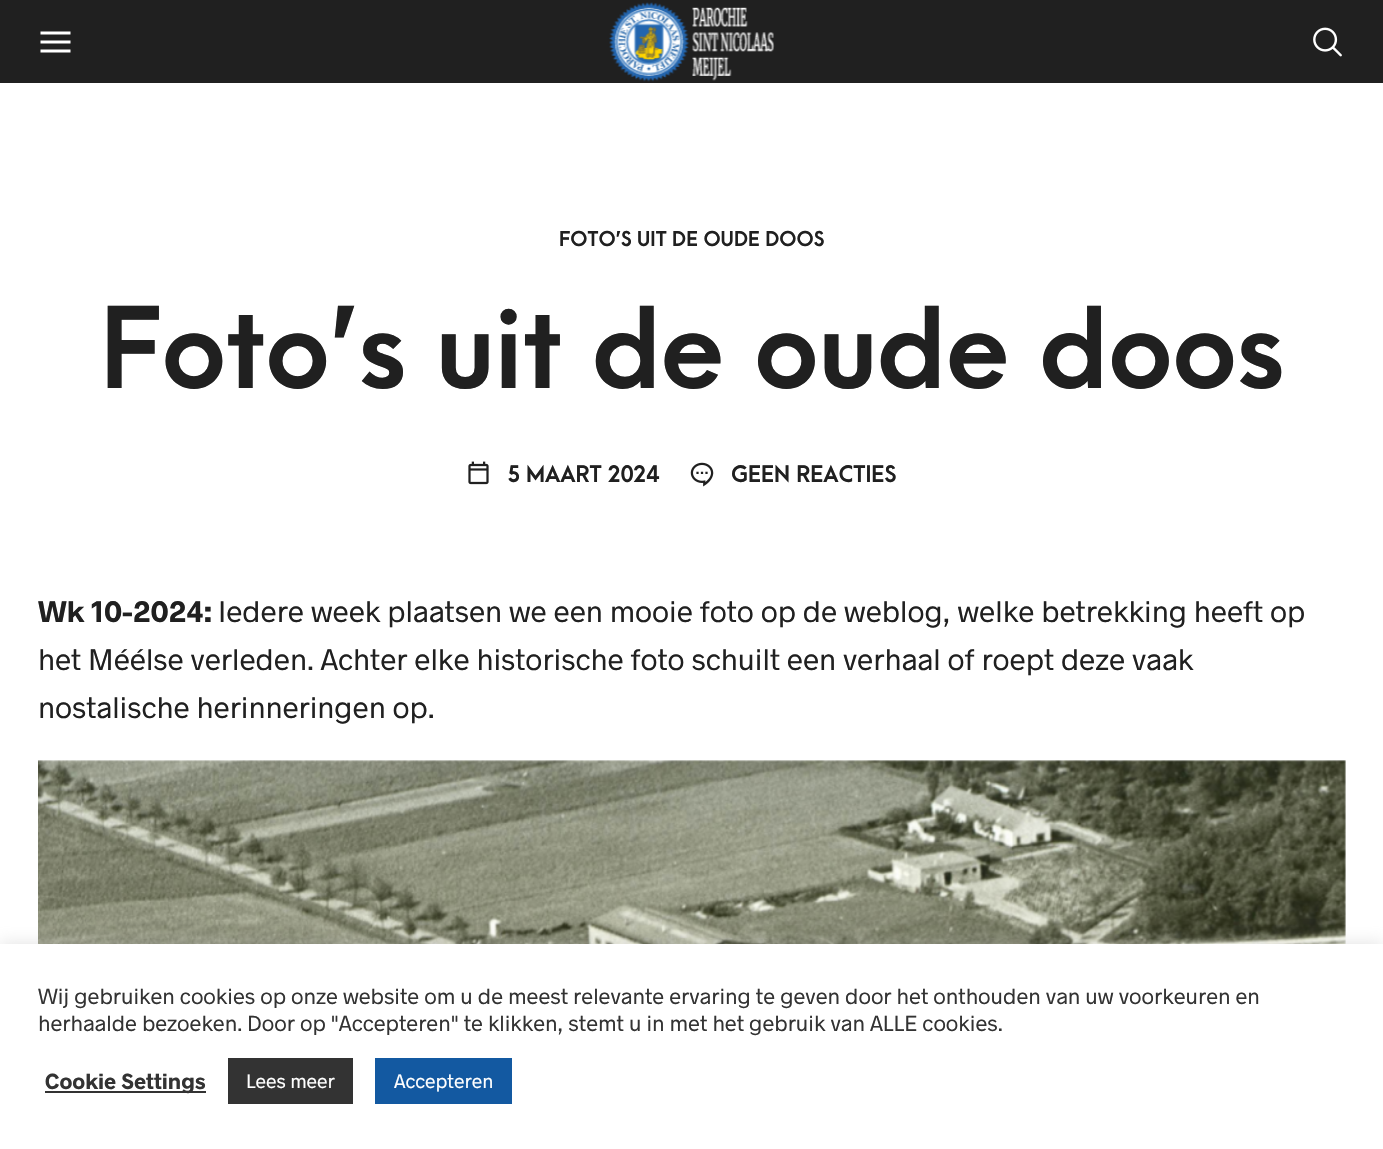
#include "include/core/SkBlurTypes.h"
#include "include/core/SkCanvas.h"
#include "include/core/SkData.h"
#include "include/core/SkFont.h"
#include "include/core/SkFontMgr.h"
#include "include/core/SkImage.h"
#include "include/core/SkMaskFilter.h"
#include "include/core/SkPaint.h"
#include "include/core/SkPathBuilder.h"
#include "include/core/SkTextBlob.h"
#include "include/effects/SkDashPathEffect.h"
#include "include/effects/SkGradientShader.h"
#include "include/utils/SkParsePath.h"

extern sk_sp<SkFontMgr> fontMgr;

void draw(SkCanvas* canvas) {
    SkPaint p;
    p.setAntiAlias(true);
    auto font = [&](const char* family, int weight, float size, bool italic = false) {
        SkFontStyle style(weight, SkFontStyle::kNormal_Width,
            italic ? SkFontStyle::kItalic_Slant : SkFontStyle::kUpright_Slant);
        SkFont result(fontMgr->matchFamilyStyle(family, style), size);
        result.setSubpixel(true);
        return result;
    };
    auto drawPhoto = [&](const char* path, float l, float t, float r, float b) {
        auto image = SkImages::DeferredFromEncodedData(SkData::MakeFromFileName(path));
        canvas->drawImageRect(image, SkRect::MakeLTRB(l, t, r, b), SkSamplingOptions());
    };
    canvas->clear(0xFFFFFFFF);
    p.setColor(0xFF202020);
    canvas->drawRect(SkRect::MakeLTRB(0, 0, 1383, 83), p);
    drawPhoto("media/1.png", 40, 31, 71, 53);
    drawPhoto("media/2.png", 609, 2, 775, 82);
    drawPhoto("media/3.png", 1313, 27, 1342, 57);
    auto font1 = font("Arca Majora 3", 700, 19.5f);
    canvas->drawString("FOTO’S UIT DE OUDE DOOS", 559, 246, font1, p);
    auto font2 = font("Arca Majora 3", 700, 106.75f);
    canvas->drawString("Foto’s uit de oude doos", 100, 388, font2, p);
    drawPhoto("media/4.png", 468, 461, 489, 485);
    auto font3 = font("Arca Majora 3", 700, 21.75f);
    canvas->drawString("5 MAART 2024", 507, 482, font3, p);
    drawPhoto("media/5.png", 690, 462, 714, 487);
    canvas->drawString("GEEN REACTIES", 731, 482, font3, p);
    auto font4 = font("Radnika", 700, 30);
    canvas->drawString("Wk 10-2024:", 38, 622, font4, p);
    auto font5 = font("Radnika", 400, 30);
    {
        const struct { const char* s; float x, y; } items[] = {
            {"Iedere week plaatsen we een mooie foto op de weblog, welke betrekking heeft op", 218, 622},
            {"het Méélse verleden. Achter elke historische foto schuilt een verhaal of roept deze vaak", 38, 670},
            {"nostalische herinneringen op.", 38, 718},
        };
        for (auto [s, x, y] : items) {
            canvas->drawString(s, x, y, font5, p);
        }
    }
    drawPhoto("media/6.png", 38, 760, 1346, 944);
    p.setColor(0x4DACABAB);
    p.setMaskFilter(SkMaskFilter::MakeBlur(kNormal_SkBlurStyle, 7.5f));
    canvas->drawRect(SkRect::MakeLTRB(0, 942, 1383, 1148), p);
    p.setMaskFilter(nullptr);
    p.setColor(0xFFFFFFFF);
    canvas->drawRect(SkRect::MakeLTRB(0, 944, 1383, 1149), p);
    auto font6 = font("Radnika", 400, 22);
    p.setColor(0xFF333333);
    canvas->drawString("Wij gebruiken cookies op onze website om u de meest relevante ervaring te geven door het onthouden van uw voorkeuren en", 38, 1004, font6, p);
    canvas->drawString("herhaalde bezoeken. Door op \"Accepteren\" te klikken, stemt u in met het gebruik van ALLE cookies.", 38, 1031, font6, p);
    canvas->drawRect(SkRect::MakeLTRB(45, 1091, 206, 1093), p);
    auto font7 = font("Radnika", 700, 22);
    canvas->drawString("Cookie Settings", 45, 1089, font7, p);
    canvas->drawRect(SkRect::MakeLTRB(228, 1058, 353, 1104), p);
    auto font8 = font("Radnika", 400, 19.5f);
    p.setColor(0xFFFFFFFF);
    canvas->drawString("Lees meer", 246, 1088, font8, p);
    p.setColor(0xFF1359A1);
    canvas->drawRect(SkRect::MakeLTRB(375, 1058, 512, 1104), p);
    p.setColor(0xFFFFFFFF);
    canvas->drawString("Accepteren", 394, 1088, font8, p);
}
